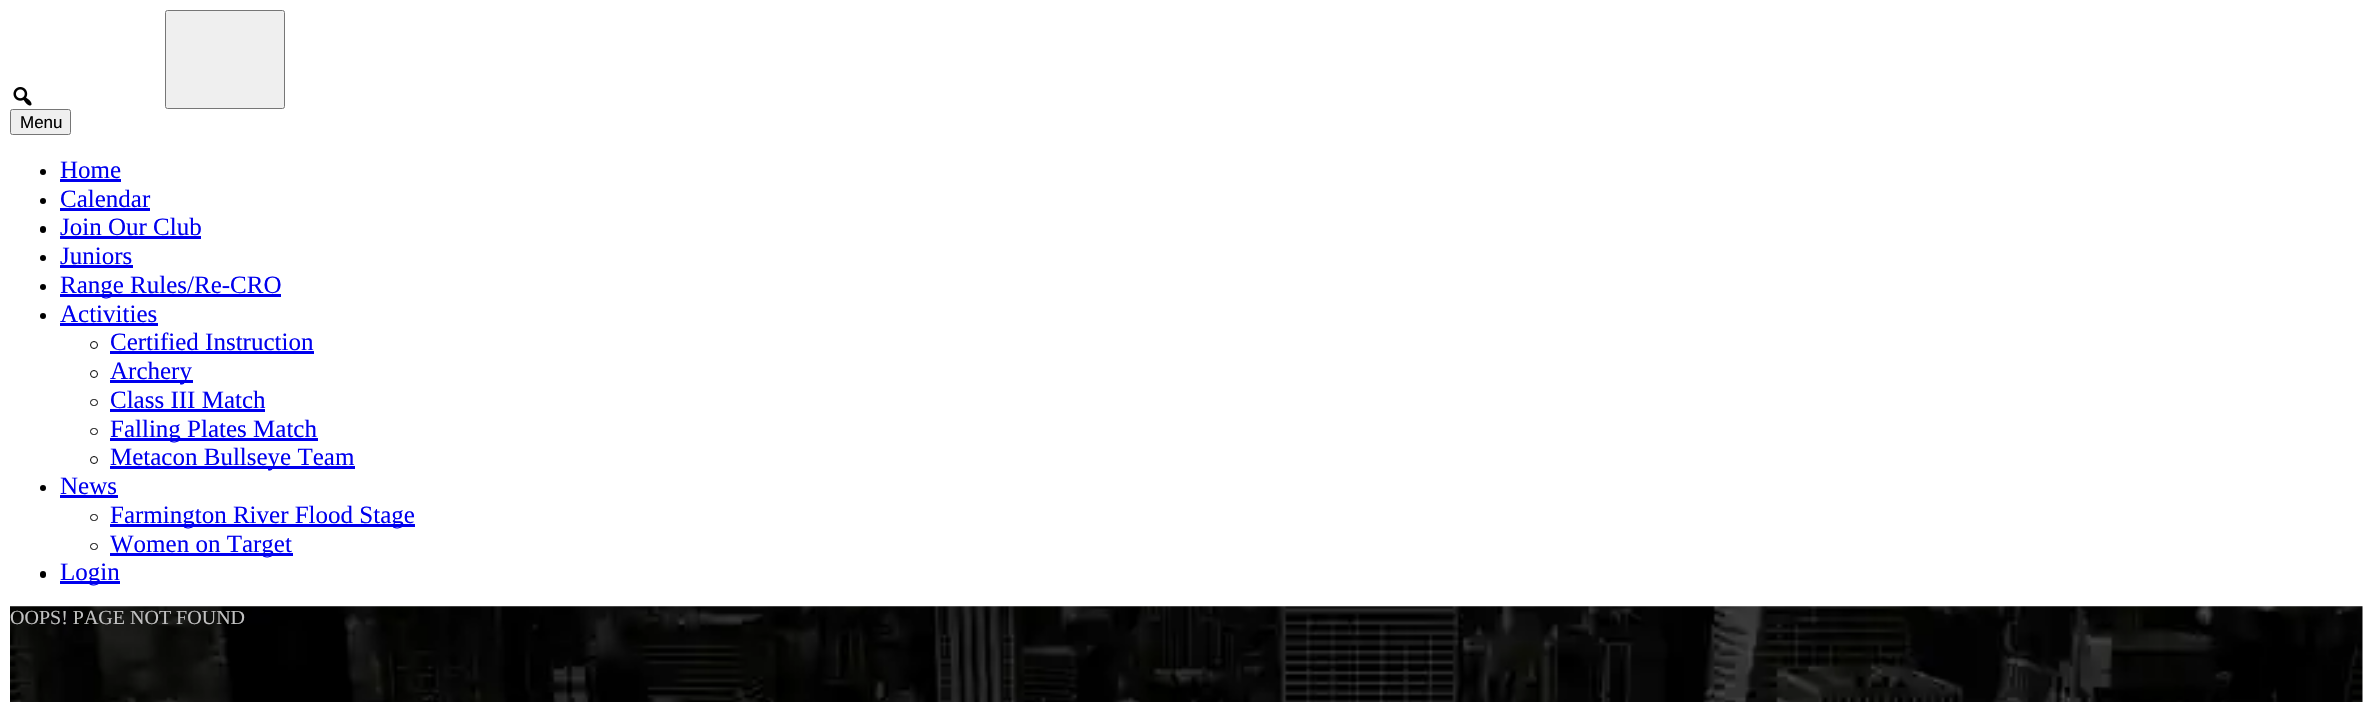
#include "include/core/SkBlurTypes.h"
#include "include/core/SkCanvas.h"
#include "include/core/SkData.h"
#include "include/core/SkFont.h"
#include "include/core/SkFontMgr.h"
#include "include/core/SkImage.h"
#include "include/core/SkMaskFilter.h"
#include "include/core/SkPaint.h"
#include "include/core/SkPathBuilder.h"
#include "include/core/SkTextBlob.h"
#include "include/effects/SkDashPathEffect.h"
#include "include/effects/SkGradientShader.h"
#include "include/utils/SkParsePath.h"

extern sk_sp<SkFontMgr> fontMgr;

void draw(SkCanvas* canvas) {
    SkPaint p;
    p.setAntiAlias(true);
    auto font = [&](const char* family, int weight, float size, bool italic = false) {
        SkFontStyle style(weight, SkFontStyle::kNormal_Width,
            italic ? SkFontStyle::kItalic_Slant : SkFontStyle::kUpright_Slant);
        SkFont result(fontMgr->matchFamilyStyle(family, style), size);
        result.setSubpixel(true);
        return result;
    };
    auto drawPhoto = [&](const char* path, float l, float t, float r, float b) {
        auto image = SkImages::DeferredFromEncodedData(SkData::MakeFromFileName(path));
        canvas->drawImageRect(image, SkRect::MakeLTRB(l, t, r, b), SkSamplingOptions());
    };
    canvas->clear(0xFFFFFFFF);
    drawPhoto("media/1.png", 13, 87, 32, 106);
    p.setColor(0xFFEFEFEF);
    canvas->drawRoundRect(SkRect::MakeLTRB(165.5f, 10.5f, 284.5f, 108.5f), 2, 2, p);
    p.setStyle(SkPaint::kStroke_Style);
    p.setStrokeWidth(1);
    p.setColor(0xFF767676);
    canvas->drawRoundRect(SkRect::MakeLTRB(165.5f, 10.5f, 284.5f, 108.5f), 2, 2, p);
    p.setStyle(SkPaint::kFill_Style);
    p.setColor(0xFFEFEFEF);
    canvas->drawRoundRect(SkRect::MakeLTRB(10.5f, 109.5f, 70.5f, 134.5f), 2, 2, p);
    p.setStyle(SkPaint::kStroke_Style);
    p.setColor(0xFF767676);
    canvas->drawRoundRect(SkRect::MakeLTRB(10.5f, 109.5f, 70.5f, 134.5f), 2, 2, p);
    auto font1 = font("Liberation Sans", 400, 17);
    p.setStyle(SkPaint::kFill_Style);
    p.setColor(0xFF000000);
    canvas->drawString("Menu", 20, 128, font1, p);
    canvas->drawCircle(43, 172, 3, p);
    auto font2 = font("Liberation Serif", 400, 25);
    p.setColor(0xFF0000EE);
    canvas->drawString("Home", 60, 178, font2, p);
    canvas->drawRect(SkRect::MakeLTRB(60, 179, 121, 182), p);
    p.setColor(0xFF000000);
    canvas->drawCircle(43, 201, 3, p);
    p.setColor(0xFF0000EE);
    canvas->drawString("Calendar", 60, 207, font2, p);
    canvas->drawRect(SkRect::MakeLTRB(60, 208, 150, 211), p);
    p.setColor(0xFF000000);
    canvas->drawRoundRect(SkRect::MakeLTRB(40, 226, 46, 233), 3, 3, p);
    p.setColor(0xFF0000EE);
    canvas->drawString("Join Our Club", 60, 235, font2, p);
    canvas->drawRect(SkRect::MakeLTRB(60, 236, 201, 239), p);
    p.setColor(0xFF000000);
    canvas->drawCircle(43, 258, 3, p);
    p.setColor(0xFF0000EE);
    canvas->drawString("Juniors", 60, 264, font2, p);
    canvas->drawRect(SkRect::MakeLTRB(60, 265, 133, 268), p);
    p.setColor(0xFF000000);
    canvas->drawCircle(43, 287, 3, p);
    p.setColor(0xFF0000EE);
    canvas->drawRect(SkRect::MakeLTRB(60, 294, 281, 297), p);
    canvas->drawString("Range Rules/Re-CRO", 60, 293, font2, p);
    p.setColor(0xFF000000);
    canvas->drawCircle(43, 316, 3, p);
    p.setColor(0xFF0000EE);
    canvas->drawString("Activities", 60, 322, font2, p);
    canvas->drawRect(SkRect::MakeLTRB(60, 323, 158, 326), p);
    p.setStyle(SkPaint::kStroke_Style);
    p.setColor(0xFF000000);
    canvas->drawCircle(94, 345, 3.5f, p);
    p.setStyle(SkPaint::kFill_Style);
    p.setColor(0xFF0000EE);
    canvas->drawString("Certified Instruction", 110, 350, font2, p);
    canvas->drawRect(SkRect::MakeLTRB(110, 351, 314, 354), p);
    p.setStyle(SkPaint::kStroke_Style);
    p.setColor(0xFF000000);
    canvas->drawCircle(94, 374, 3.5f, p);
    p.setStyle(SkPaint::kFill_Style);
    p.setColor(0xFF0000EE);
    canvas->drawRect(SkRect::MakeLTRB(110, 380, 193, 383), p);
    canvas->drawString("Archery", 110, 379, font2, p);
    p.setStyle(SkPaint::kStroke_Style);
    p.setColor(0xFF000000);
    canvas->drawRoundRect(SkRect::MakeLTRB(90.5f, 399.5f, 97.5f, 405.5f), 3, 3, p);
    p.setStyle(SkPaint::kFill_Style);
    p.setColor(0xFF0000EE);
    canvas->drawString("Class III Match", 110, 408, font2, p);
    canvas->drawRect(SkRect::MakeLTRB(110, 409, 265, 412), p);
    p.setStyle(SkPaint::kStroke_Style);
    p.setColor(0xFF000000);
    canvas->drawRoundRect(SkRect::MakeLTRB(90.5f, 428.5f, 97.5f, 434.5f), 3, 3, p);
    p.setStyle(SkPaint::kFill_Style);
    p.setColor(0xFF0000EE);
    canvas->drawRect(SkRect::MakeLTRB(110, 438, 318, 441), p);
    canvas->drawString("Falling Plates Match", 110, 437, font2, p);
    p.setStyle(SkPaint::kStroke_Style);
    p.setColor(0xFF000000);
    canvas->drawCircle(94, 460, 3.5f, p);
    p.setStyle(SkPaint::kFill_Style);
    p.setColor(0xFF0000EE);
    canvas->drawRect(SkRect::MakeLTRB(110, 466, 355, 469), p);
    canvas->drawString("Metacon Bullseye Team", 110, 465, font2, p);
    p.setColor(0xFF000000);
    canvas->drawCircle(43, 488, 3, p);
    p.setColor(0xFF0000EE);
    canvas->drawString("News", 60, 494, font2, p);
    canvas->drawRect(SkRect::MakeLTRB(60, 495, 118, 498), p);
    p.setStyle(SkPaint::kStroke_Style);
    p.setColor(0xFF000000);
    canvas->drawRoundRect(SkRect::MakeLTRB(90.5f, 514.5f, 97.5f, 520.5f), 3, 3, p);
    p.setStyle(SkPaint::kFill_Style);
    p.setColor(0xFF0000EE);
    canvas->drawRect(SkRect::MakeLTRB(110, 524, 415, 527), p);
    canvas->drawString("Farmington River Flood Stage", 110, 523, font2, p);
    p.setStyle(SkPaint::kStroke_Style);
    p.setColor(0xFF000000);
    canvas->drawRoundRect(SkRect::MakeLTRB(90.5f, 543.5f, 97.5f, 549.5f), 3, 3, p);
    p.setStyle(SkPaint::kFill_Style);
    p.setColor(0xFF0000EE);
    canvas->drawRect(SkRect::MakeLTRB(110, 553, 293, 556), p);
    canvas->drawString("Women on Target", 110, 552, font2, p);
    p.setColor(0xFF000000);
    canvas->drawRoundRect(SkRect::MakeLTRB(40, 571, 46, 578), 3, 3, p);
    p.setColor(0xFF0000EE);
    canvas->drawRect(SkRect::MakeLTRB(60, 581, 120, 584), p);
    canvas->drawString("Login", 60, 580, font2, p);
    drawPhoto("media/2.png", 10, 606, 2363, 702);
    auto font3 = font("Liberation Serif", 400, 20);
    p.setColor(0xFFC0C0C0);
    canvas->drawString("OOPS! PAGE NOT FOUND", 10, 624, font3, p);
}
